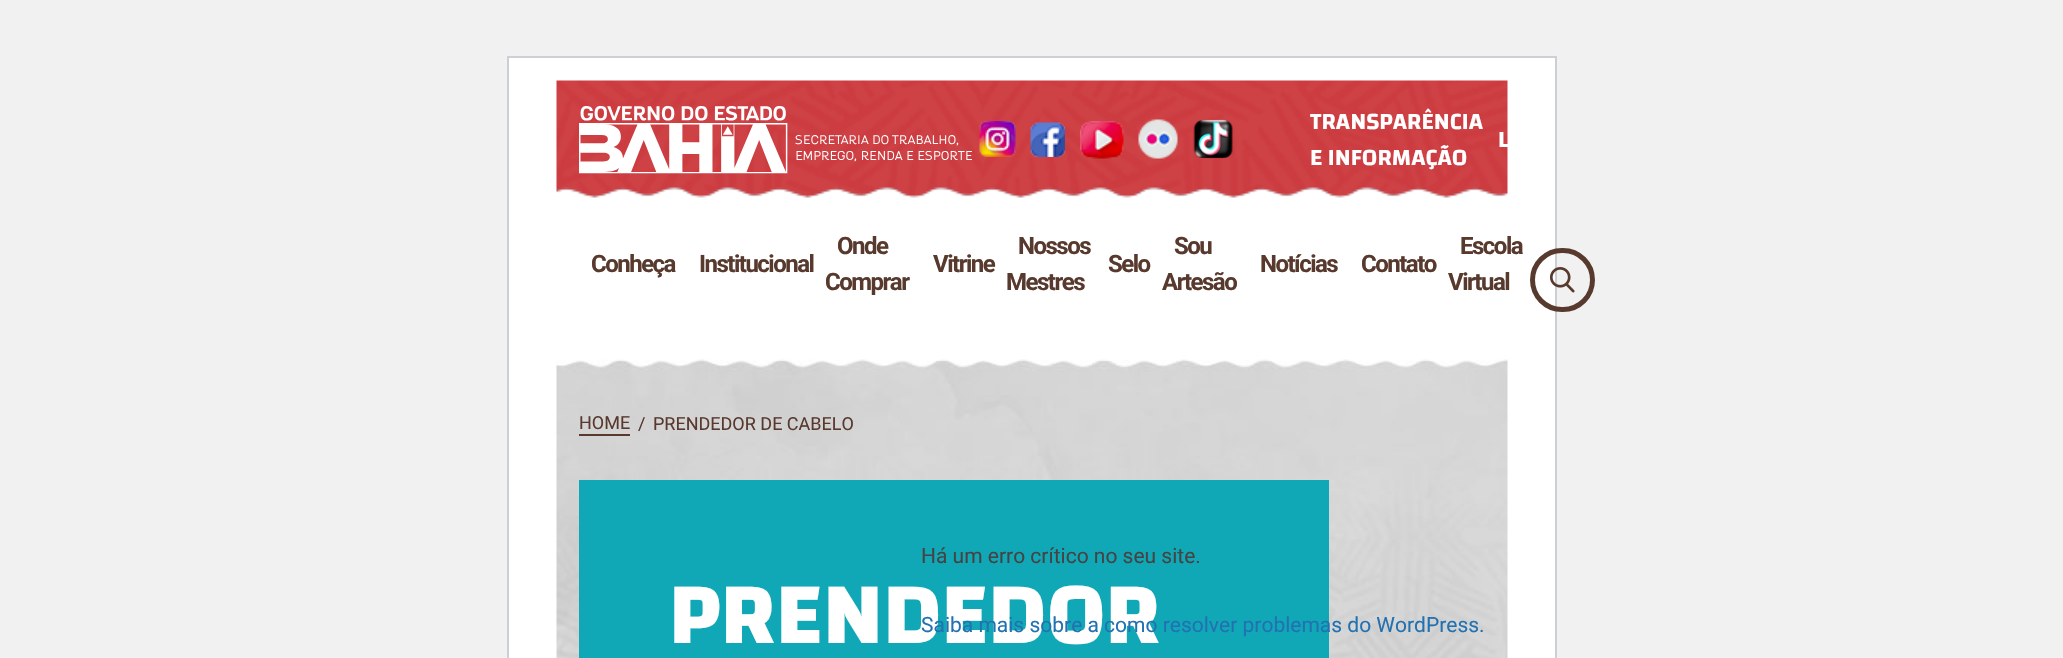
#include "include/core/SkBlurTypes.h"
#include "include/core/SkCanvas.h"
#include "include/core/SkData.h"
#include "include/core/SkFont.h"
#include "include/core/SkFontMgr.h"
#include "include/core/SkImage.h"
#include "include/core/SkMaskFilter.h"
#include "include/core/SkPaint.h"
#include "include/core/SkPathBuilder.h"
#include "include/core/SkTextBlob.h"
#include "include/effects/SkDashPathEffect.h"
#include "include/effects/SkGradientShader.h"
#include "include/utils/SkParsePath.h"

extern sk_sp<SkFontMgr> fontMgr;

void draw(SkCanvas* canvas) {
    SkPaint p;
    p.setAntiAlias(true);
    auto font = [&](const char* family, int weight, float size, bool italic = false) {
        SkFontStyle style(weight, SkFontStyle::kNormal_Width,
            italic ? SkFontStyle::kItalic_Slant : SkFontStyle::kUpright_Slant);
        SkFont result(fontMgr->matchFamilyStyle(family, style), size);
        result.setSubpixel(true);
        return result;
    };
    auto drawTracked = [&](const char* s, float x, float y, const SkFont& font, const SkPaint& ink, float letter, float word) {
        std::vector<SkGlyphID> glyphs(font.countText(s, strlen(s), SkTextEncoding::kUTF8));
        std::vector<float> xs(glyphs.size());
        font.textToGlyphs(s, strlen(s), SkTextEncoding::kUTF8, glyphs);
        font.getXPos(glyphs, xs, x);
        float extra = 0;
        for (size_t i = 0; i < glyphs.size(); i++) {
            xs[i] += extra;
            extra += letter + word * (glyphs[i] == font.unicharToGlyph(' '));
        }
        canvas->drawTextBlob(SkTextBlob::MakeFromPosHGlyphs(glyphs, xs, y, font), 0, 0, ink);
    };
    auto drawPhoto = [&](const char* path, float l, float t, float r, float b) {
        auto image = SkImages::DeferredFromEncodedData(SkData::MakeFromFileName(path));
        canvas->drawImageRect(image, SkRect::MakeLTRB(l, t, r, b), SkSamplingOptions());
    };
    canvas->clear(0xFFF1F1F1);
    p.setColor(0xFFFFFFFF);
    canvas->drawRect(SkRect::MakeLTRB(508, 57, 1556, 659), p);
    p.setStyle(SkPaint::kStroke_Style);
    p.setStrokeWidth(2);
    p.setColor(0xFFCCD0D4);
    canvas->drawRect(SkRect::MakeLTRB(508, 57, 1556, 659), p);
    drawPhoto("media/1.png", 556, 80, 1508, 198);
    drawPhoto("media/2.png", 579, 106, 972, 174);
    drawPhoto("media/3.png", 979, 121, 1016, 157);
    drawPhoto("media/4.png", 1030, 122, 1065, 157);
    drawPhoto("media/5.png", 1080, 121, 1124, 159);
    drawPhoto("media/6.png", 1138, 119, 1178, 159);
    drawPhoto("media/7.png", 1193, 119, 1233, 159);
    auto font1 = font("Changa", 600, 24);
    p.setStyle(SkPaint::kFill_Style);
    p.setColor(0xFFFFFFFF);
    {
        const struct { const char* s; float x, y; } items[] = {
            {"TRANSPARÊNCIA", 1310, 129},
            {"E INFORMAÇÃO", 1310, 165},
            {"L", 1498, 147},
        };
        for (auto [s, x, y] : items) {
            canvas->drawString(s, x, y, font1, p);
        }
    }
    auto font2 = font("Roboto", 700, 24);
    p.setColor(0xFF58392E);
    {
        const struct { const char* s; float x, y; } items[] = {
            {"Conheça", 591, 272},
            {"Institucional", 699, 272},
            {"Onde", 837, 254},
            {"Comprar", 825, 290},
            {"Vitrine", 933, 272},
            {"Nossos", 1018, 254},
            {"Mestres", 1006, 290},
            {"Selo", 1108, 272},
            {"Sou", 1174, 254},
            {"Artesão", 1162, 290},
            {"Notícias", 1260, 272},
            {"Contato", 1361, 272},
            {"Escola", 1460, 254},
            {"Virtual", 1448, 290},
        };
        for (auto [s, x, y] : items) {
            drawTracked(s, x, y, font2, p, -1.5f, 0);
        }
    }
    p.setStyle(SkPaint::kStroke_Style);
    p.setStrokeWidth(5);
    canvas->drawRoundRect(SkRect::MakeLTRB(1532.5f, 250.5f, 1592.5f, 309.5f), 29.5f, 29.5f, p);
    drawPhoto("media/8.png", 1550, 267, 1575, 293);
    drawPhoto("media/9.png", 556, 359, 1508, 658);
    p.setStyle(SkPaint::kFill_Style);
    canvas->drawRect(SkRect::MakeLTRB(579, 434, 630, 436), p);
    auto font3 = font("Roboto", 400, 18);
    {
        const struct { const char* s; float x, y; } items[] = {
            {"HOME", 579, 429},
            {"/", 638, 430},
            {"PRENDEDOR DE CABELO", 653, 430},
        };
        for (auto [s, x, y] : items) {
            canvas->drawString(s, x, y, font3, p);
        }
    }
    p.setColor(0xFF10A8B7);
    canvas->drawRect(SkRect::MakeLTRB(579, 480, 1329, 658), p);
    auto font4 = font("Changa", 700, 90);
    p.setColor(0xFFFFFFFF);
    canvas->drawString("PRENDEDOR", 669, 643, font4, p);
    auto font5 = font("Roboto", 400, 21);
    p.setColor(0xFF444444);
    canvas->drawString("Há um erro crítico no seu site.", 921, 563, font5, p);
    p.setColor(0xFF2271B1);
    canvas->drawString("Saiba mais sobre a como resolver problemas do WordPress.", 921, 632, font5, p);
}
